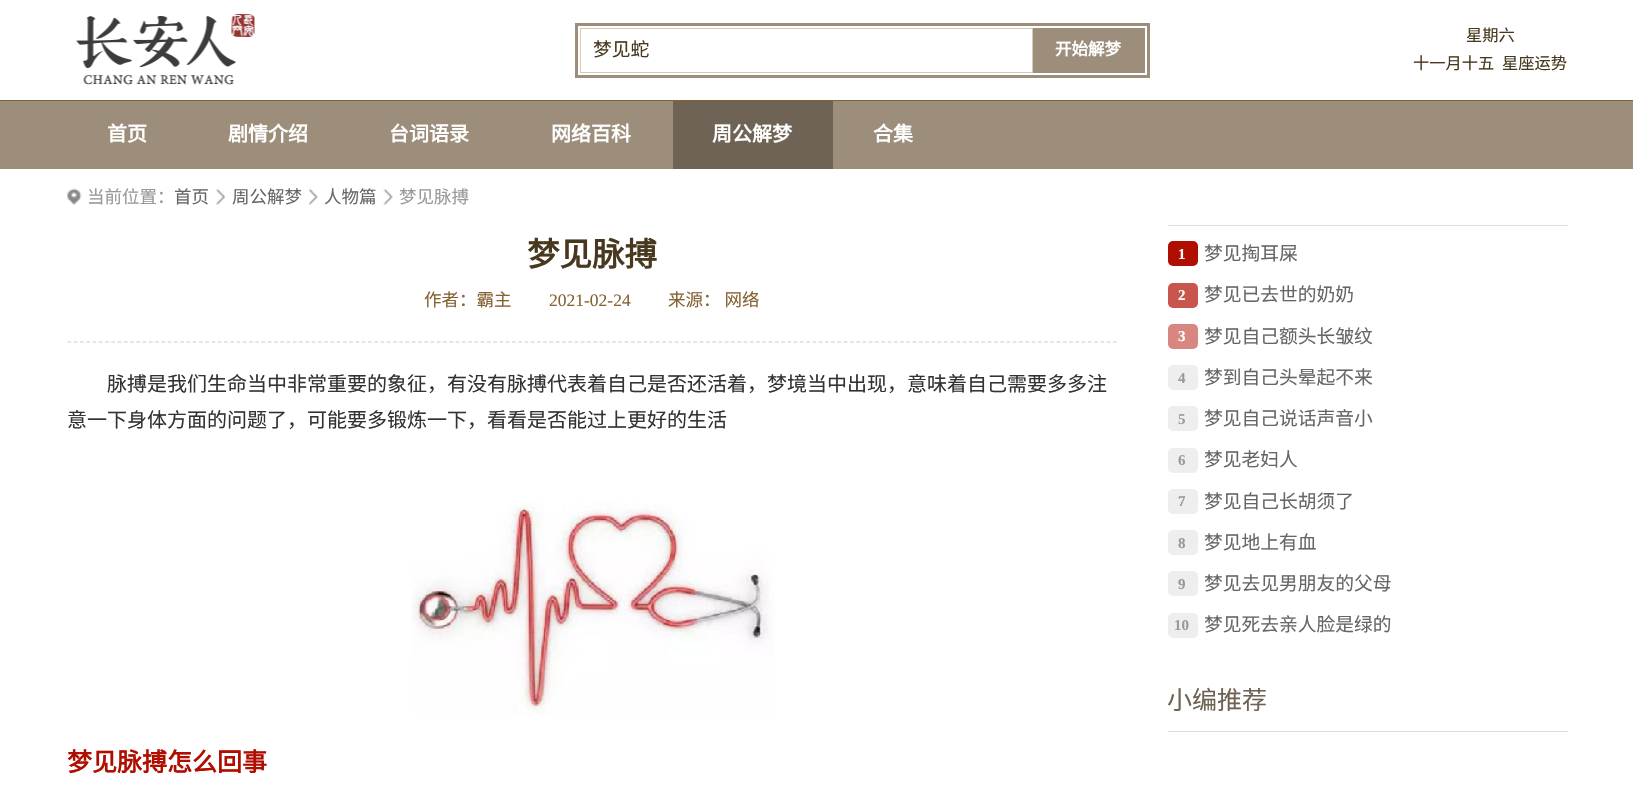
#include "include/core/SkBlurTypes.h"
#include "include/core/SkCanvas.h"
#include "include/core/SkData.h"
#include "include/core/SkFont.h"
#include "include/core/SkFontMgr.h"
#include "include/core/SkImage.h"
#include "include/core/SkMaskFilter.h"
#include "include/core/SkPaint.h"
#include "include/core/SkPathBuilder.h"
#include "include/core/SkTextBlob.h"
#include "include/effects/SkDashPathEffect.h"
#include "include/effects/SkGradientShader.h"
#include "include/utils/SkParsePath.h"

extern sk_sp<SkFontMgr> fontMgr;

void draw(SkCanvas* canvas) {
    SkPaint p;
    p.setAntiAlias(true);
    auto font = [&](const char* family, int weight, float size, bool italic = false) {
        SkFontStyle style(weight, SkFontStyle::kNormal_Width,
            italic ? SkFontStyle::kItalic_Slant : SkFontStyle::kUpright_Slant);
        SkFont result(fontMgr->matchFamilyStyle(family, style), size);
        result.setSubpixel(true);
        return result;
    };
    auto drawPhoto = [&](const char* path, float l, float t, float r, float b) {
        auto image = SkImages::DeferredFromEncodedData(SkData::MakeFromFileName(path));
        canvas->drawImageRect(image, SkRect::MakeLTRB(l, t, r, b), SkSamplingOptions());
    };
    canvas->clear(0xFFFFFFFF);
    p.setColor(0xFF856231);
    canvas->drawRect(SkRect::MakeLTRB(0, 100, 1633, 101), p);
    drawPhoto("media/1.png", 76, 14, 255, 85);
    p.setStyle(SkPaint::kStroke_Style);
    p.setStrokeWidth(3);
    p.setColor(0xFF9C8E7A);
    canvas->drawRect(SkRect::MakeLTRB(576.5f, 24.5f, 1148.5f, 76.5f), p);
    p.setStrokeWidth(1);
    p.setColor(0xFFD9C8B3);
    canvas->drawRect(SkRect::MakeLTRB(580.5f, 28.5f, 1032.5f, 72.5f), p);
    auto font1 = font("Noto Sans CJK SC", 400, 18.75f);
    p.setStyle(SkPaint::kFill_Style);
    p.setColor(0xFF48381E);
    canvas->drawString("梦见蛇", 593, 56, font1, p);
    p.setColor(0xFF9C8E7A);
    canvas->drawRect(SkRect::MakeLTRB(1033, 28, 1145, 73), p);
    auto font2 = font("Noto Sans CJK SC", 700, 16.5f);
    p.setColor(0xFFFFFFFF);
    canvas->drawString("开始解梦", 1055, 55, font2, p);
    auto font3 = font("Noto Sans CJK SC", 400, 16.25f);
    p.setColor(0xFF48381E);
    {
        const struct { const char* s; float x, y; } items[] = {
            {"星期六", 1466, 41},
            {"十一月十五", 1413, 69},
            {"星座运势", 1502, 69},
        };
        for (auto [s, x, y] : items) {
            canvas->drawString(s, x, y, font3, p);
        }
    }
    p.setColor(0xFF9C8E7A);
    canvas->drawRect(SkRect::MakeLTRB(0, 101, 1633, 169), p);
    auto font4 = font("Noto Sans CJK SC", 700, 20);
    p.setColor(0xFFFFFFFF);
    {
        const struct { const char* s; float x, y; } items[] = {
            {"首页", 107, 141},
            {"剧情介绍", 228, 141},
            {"台词语录", 389, 141},
            {"网络百科", 551, 141},
        };
        for (auto [s, x, y] : items) {
            canvas->drawString(s, x, y, font4, p);
        }
    }
    p.setColor(0xFF6E6354);
    canvas->drawRect(SkRect::MakeLTRB(673, 101, 833, 169), p);
    p.setColor(0xFFFFFFFF);
    canvas->drawString("周公解梦", 712, 141, font4, p);
    canvas->drawString("合集", 873, 141, font4, p);
    drawPhoto("media/2.png", 67, 188, 82, 205);
    auto font5 = font("Noto Sans CJK SC", 400, 17.5f);
    p.setColor(0xFF999999);
    canvas->drawString("当前位置：", 87, 203, font5, p);
    drawPhoto("media/3.png", 216, 188, 225, 205);
    p.setColor(0xFF666666);
    canvas->drawString("首页", 174, 203, font5, p);
    drawPhoto("media/4.png", 308, 188, 318, 205);
    canvas->drawString("周公解梦", 232, 203, font5, p);
    drawPhoto("media/5.png", 383, 188, 393, 205);
    canvas->drawString("人物篇", 324, 203, font5, p);
    p.setColor(0xFF999999);
    canvas->drawString("梦见脉搏", 399, 203, font5, p);
    p.setStyle(SkPaint::kStroke_Style);
    p.setStrokeWidth(1.2f);
    p.setColor(0xFFD9C8B3);
    p.setPathEffect(SkDashPathEffect::Make({{3.75f, 2.51f}}, 0));
    canvas->drawPath(SkPathBuilder().moveTo(67.5f, 342).lineTo(1117.5f, 342).detach(), p);
    p.setPathEffect(nullptr);
    auto font6 = font("Noto Sans CJK SC", 700, 32.5f);
    p.setStyle(SkPaint::kFill_Style);
    p.setColor(0xFF48381E);
    canvas->drawString("梦见脉搏", 527, 266, font6, p);
    p.setColor(0xFF856231);
    canvas->drawString("作者：霸主", 424, 306, font5, p);
    auto font7 = font("Liberation Serif", 400, 17.5f);
    canvas->drawString("2021-02-24", 549, 306, font7, p);
    canvas->drawString("来源： 网络", 668, 306, font5, p);
    auto font8 = font("Noto Sans CJK SC", 400, 20);
    p.setColor(0xFF333333);
    canvas->drawString("脉搏是我们生命当中非常重要的象征，有没有脉搏代表着自己是否还活着，梦境当中出现，意味着自己需要多多注", 107, 391, font8, p);
    canvas->drawString("意一下身体方面的问题了，可能要多锻炼一下，看看是否能过上更好的生活", 67, 427, font8, p);
    drawPhoto("media/6.png", 411, 502, 775, 715);
    auto font9 = font("Noto Sans CJK SC", 700, 25);
    p.setColor(0xFFB00E00);
    canvas->drawString("梦见脉搏怎么回事", 67, 771, font9, p);
    p.setColor(0xFFDDDDDD);
    canvas->drawRect(SkRect::MakeLTRB(1168, 225, 1568, 226), p);
    p.setColor(0xFFB00E00);
    canvas->drawRoundRect(SkRect::MakeLTRB(1168, 241, 1198, 266), 5, 5, p);
    auto font10 = font("Liberation Serif", 700, 15);
    p.setColor(0xFFFFFFFF);
    canvas->drawString("1", 1178, 259, font10, p);
    p.setColor(0xFF666666);
    canvas->drawString("梦见掏耳屎", 1204, 260, font1, p);
    p.setColor(0xFFC8564D);
    canvas->drawRoundRect(SkRect::MakeLTRB(1168, 283, 1198, 308), 5, 5, p);
    p.setColor(0xFFFFFFFF);
    canvas->drawString("2", 1178, 300, font10, p);
    p.setColor(0xFF666666);
    canvas->drawString("梦见已去世的奶奶", 1204, 301, font1, p);
    p.setColor(0xFFD88780);
    canvas->drawRoundRect(SkRect::MakeLTRB(1168, 324, 1198, 349), 5, 5, p);
    p.setColor(0xFFFFFFFF);
    canvas->drawString("3", 1178, 341, font10, p);
    p.setColor(0xFF666666);
    canvas->drawString("梦见自己额头长皱纹", 1204, 343, font1, p);
    p.setColor(0xFFEEEEEE);
    canvas->drawRoundRect(SkRect::MakeLTRB(1168, 365, 1198, 390), 5, 5, p);
    p.setColor(0xFF999999);
    canvas->drawString("4", 1178, 383, font10, p);
    p.setColor(0xFF666666);
    canvas->drawString("梦到自己头晕起不来", 1204, 384, font1, p);
    p.setColor(0xFFEEEEEE);
    canvas->drawRoundRect(SkRect::MakeLTRB(1168, 406, 1198, 431), 5, 5, p);
    p.setColor(0xFF999999);
    canvas->drawString("5", 1178, 424, font10, p);
    p.setColor(0xFF666666);
    canvas->drawString("梦见自己说话声音小", 1204, 425, font1, p);
    p.setColor(0xFFEEEEEE);
    canvas->drawRoundRect(SkRect::MakeLTRB(1168, 448, 1198, 473), 5, 5, p);
    p.setColor(0xFF999999);
    canvas->drawString("6", 1178, 465, font10, p);
    p.setColor(0xFF666666);
    canvas->drawString("梦见老妇人", 1204, 466, font1, p);
    p.setColor(0xFFEEEEEE);
    canvas->drawRoundRect(SkRect::MakeLTRB(1168, 489, 1198, 514), 5, 5, p);
    p.setColor(0xFF999999);
    canvas->drawString("7", 1178, 506, font10, p);
    p.setColor(0xFF666666);
    canvas->drawString("梦见自己长胡须了", 1204, 508, font1, p);
    p.setColor(0xFFEEEEEE);
    canvas->drawRoundRect(SkRect::MakeLTRB(1168, 530, 1198, 555), 5, 5, p);
    p.setColor(0xFF999999);
    canvas->drawString("8", 1178, 548, font10, p);
    p.setColor(0xFF666666);
    canvas->drawString("梦见地上有血", 1204, 549, font1, p);
    p.setColor(0xFFEEEEEE);
    canvas->drawRoundRect(SkRect::MakeLTRB(1168, 571, 1198, 596), 5, 5, p);
    p.setColor(0xFF999999);
    canvas->drawString("9", 1178, 589, font10, p);
    p.setColor(0xFF666666);
    canvas->drawString("梦见去见男朋友的父母", 1204, 590, font1, p);
    p.setColor(0xFFEEEEEE);
    canvas->drawRoundRect(SkRect::MakeLTRB(1168, 613, 1198, 638), 5, 5, p);
    p.setColor(0xFF999999);
    canvas->drawString("10", 1174, 630, font10, p);
    p.setColor(0xFF666666);
    canvas->drawString("梦见死去亲人脸是绿的", 1204, 631, font1, p);
    p.setColor(0xFFDDDDDD);
    canvas->drawRect(SkRect::MakeLTRB(1168, 731, 1568, 732), p);
    auto font11 = font("Noto Sans CJK SC", 400, 25);
    p.setColor(0xFF6E6354);
    canvas->drawString("小编推荐", 1167, 709, font11, p);
}
